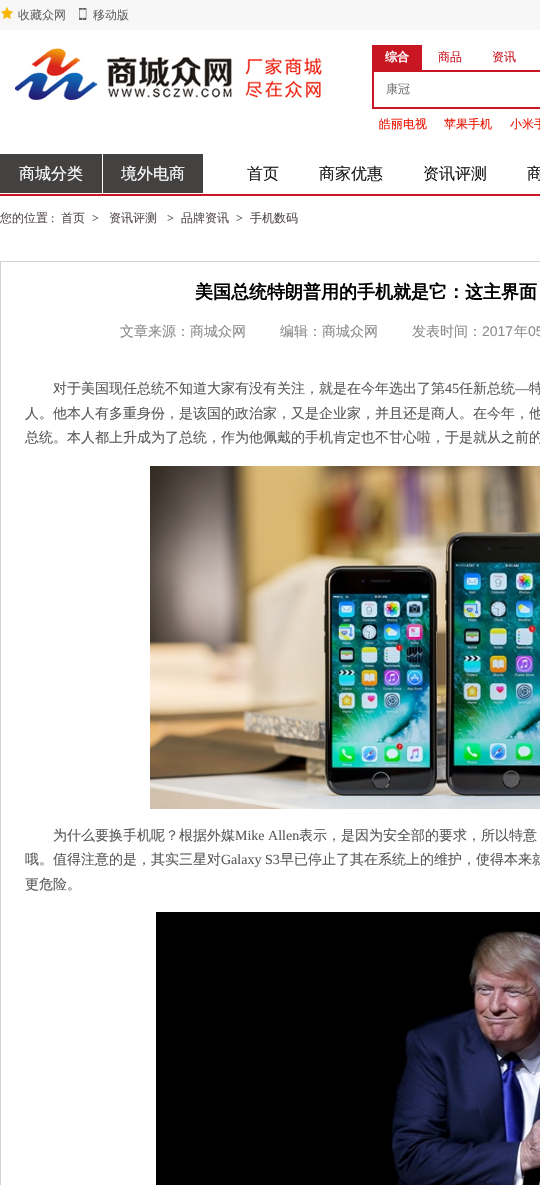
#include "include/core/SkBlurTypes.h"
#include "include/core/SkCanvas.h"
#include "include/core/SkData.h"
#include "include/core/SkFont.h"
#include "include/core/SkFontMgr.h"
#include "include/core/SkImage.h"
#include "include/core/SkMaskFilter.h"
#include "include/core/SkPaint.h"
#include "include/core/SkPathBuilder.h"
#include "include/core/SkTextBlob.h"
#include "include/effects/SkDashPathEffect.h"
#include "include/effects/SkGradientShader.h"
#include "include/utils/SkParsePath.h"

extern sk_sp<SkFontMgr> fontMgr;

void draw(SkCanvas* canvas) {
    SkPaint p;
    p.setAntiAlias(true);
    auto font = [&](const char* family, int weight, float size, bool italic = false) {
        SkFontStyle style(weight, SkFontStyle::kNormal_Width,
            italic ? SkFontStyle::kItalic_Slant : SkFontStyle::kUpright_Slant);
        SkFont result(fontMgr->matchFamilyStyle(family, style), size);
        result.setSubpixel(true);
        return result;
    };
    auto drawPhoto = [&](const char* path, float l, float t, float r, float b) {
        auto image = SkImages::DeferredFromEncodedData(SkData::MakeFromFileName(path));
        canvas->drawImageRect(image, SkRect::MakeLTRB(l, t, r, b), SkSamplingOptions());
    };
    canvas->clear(0xFFFFFFFF);
    p.setColor(0xFFF7F7F7);
    canvas->drawRect(SkRect::MakeLTRB(0, 0, 540, 30), p);
    drawPhoto("media/1.png", 1, 7, 13, 19);
    auto font1 = font("WenQuanYi Zen Hei", 500, 12);
    p.setColor(0xFF666666);
    canvas->drawString("收藏众网", 18, 19, font1, p);
    drawPhoto("media/2.png", 79, 8, 87, 20);
    canvas->drawString("移动版", 93, 19, font1, p);
    drawPhoto("media/3.png", 15, 48, 325, 102);
    p.setColor(0xFFC81623);
    canvas->drawRect(SkRect::MakeLTRB(372, 45, 422, 70), p);
    auto font2 = font("WenQuanYi Zen Hei", 700, 12);
    p.setColor(0xFFFFFFFF);
    canvas->drawString("综合", 385, 61, font2, p);
    p.setColor(0xFFC81623);
    canvas->drawString("商品", 438, 61, font1, p);
    canvas->drawString("资讯", 492, 61, font1, p);
    p.setStyle(SkPaint::kStroke_Style);
    p.setStrokeWidth(2);
    canvas->drawRect(SkRect::MakeLTRB(373, 71, 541, 108), p);
    p.setStyle(SkPaint::kFill_Style);
    p.setColor(0xFF757575);
    canvas->drawString("康冠", 386, 93, font1, p);
    p.setColor(0xFFE91300);
    {
        const struct { const char* s; float x, y; } items[] = {
            {"皓丽电视", 379, 128},
            {"苹果手机", 444, 128},
            {"小米手", 510, 128},
        };
        for (auto [s, x, y] : items) {
            canvas->drawString(s, x, y, font1, p);
        }
    }
    p.setColor(0xFFC81623);
    canvas->drawRect(SkRect::MakeLTRB(0, 194, 540, 196), p);
    p.setColor(0xFF444141);
    canvas->drawRect(SkRect::MakeLTRB(0, 154, 102, 193), p);
    auto font3 = font("WenQuanYi Zen Hei", 500, 16);
    p.setColor(0xFFFFFFFF);
    canvas->drawString("商城分类", 19, 179, font3, p);
    p.setColor(0xFF444141);
    canvas->drawRect(SkRect::MakeLTRB(103, 154, 203, 193), p);
    p.setColor(0xFFFFFFFF);
    canvas->drawString("境外电商", 121, 179, font3, p);
    p.setColor(0xFF181818);
    {
        const struct { const char* s; float x, y; } items[] = {
            {"首页", 247, 179},
            {"商家优惠", 319, 179},
            {"资讯评测", 423, 179},
            {"商", 527, 179},
        };
        for (auto [s, x, y] : items) {
            canvas->drawString(s, x, y, font3, p);
        }
    }
    p.setColor(0xFF564C4C);
    canvas->drawString("您的位置", 0, 222, font1, p);
    auto font4 = font("Liberation Serif", 400, 12);
    canvas->drawString(":", 51, 222, font4, p);
    canvas->drawString("首页", 61, 222, font1, p);
    canvas->drawString(">", 92, 222, font4, p);
    canvas->drawString("资讯评测", 109, 222, font1, p);
    canvas->drawString(">", 167, 222, font4, p);
    canvas->drawString("品牌资讯", 181, 222, font1, p);
    canvas->drawString(">", 236, 222, font4, p);
    canvas->drawString("手机数码", 250, 222, font1, p);
    p.setStyle(SkPaint::kStroke_Style);
    p.setStrokeWidth(1);
    p.setColor(0xFFD3D1D1);
    canvas->drawRect(SkRect::MakeLTRB(0.5f, 261.5f, 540.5f, 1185.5f), p);
    auto font5 = font("WenQuanYi Zen Hei", 700, 18);
    p.setStyle(SkPaint::kFill_Style);
    p.setColor(0xFF000000);
    canvas->drawString("美国总统特朗普用的手机就是它：这主界面", 195, 298, font5, p);
    auto font6 = font("WenQuanYi Zen Hei", 500, 14);
    p.setColor(0xFF8D8B8B);
    {
        const struct { const char* s; float x, y; } items[] = {
            {"文章来源：商城众网", 120, 336},
            {"编辑：商城众网", 280, 336},
            {"发表时间：", 412, 336},
        };
        for (auto [s, x, y] : items) {
            canvas->drawString(s, x, y, font6, p);
        }
    }
    auto font7 = font("Liberation Sans", 400, 14);
    canvas->drawString("2017", 482, 336, font7, p);
    canvas->drawString("年", 514, 336, font6, p);
    canvas->drawString("05", 528, 336, font7, p);
    p.setColor(0xFF595959);
    canvas->drawString("对于美国现任总统不知道大家有没有关注，就是在今年选出了第", 53, 393, font6, p);
    auto font8 = font("Liberation Serif", 400, 14);
    canvas->drawString("45", 445, 393, font8, p);
    canvas->drawString("任新总统", 459, 393, font6, p);
    canvas->drawString("—", 515, 393, font8, p);
    {
        const struct { const char* s; float x, y; } items[] = {
            {"特", 529, 393},
            {"人。他本人有多重身份，是该国的政治家，又是企业家，并且还是商人。在今年，他", 25, 418},
            {"总统。本人都上升成为了总统，作为他佩戴的手机肯定也不甘心啦，于是就从之前的", 25, 442},
        };
        for (auto [s, x, y] : items) {
            canvas->drawString(s, x, y, font6, p);
        }
    }
    drawPhoto("media/4.png", 150, 466, 540, 809);
    canvas->drawString("为什么要换手机呢？根据外媒", 53, 840, font6, p);
    canvas->drawString("Mike Allen", 235, 840, font8, p);
    canvas->drawString("表示，是因为安全部的要求，所以特意", 299, 840, font6, p);
    canvas->drawString("哦。值得注意的是，其实三星对", 25, 864, font6, p);
    canvas->drawString("Galaxy S3", 221, 864, font8, p);
    canvas->drawString("早已停止了其在系统上的维护，使得本来就", 280, 864, font6, p);
    canvas->drawString("更危险。", 25, 889, font6, p);
    drawPhoto("media/5.png", 156, 912, 540, 1185);
}
